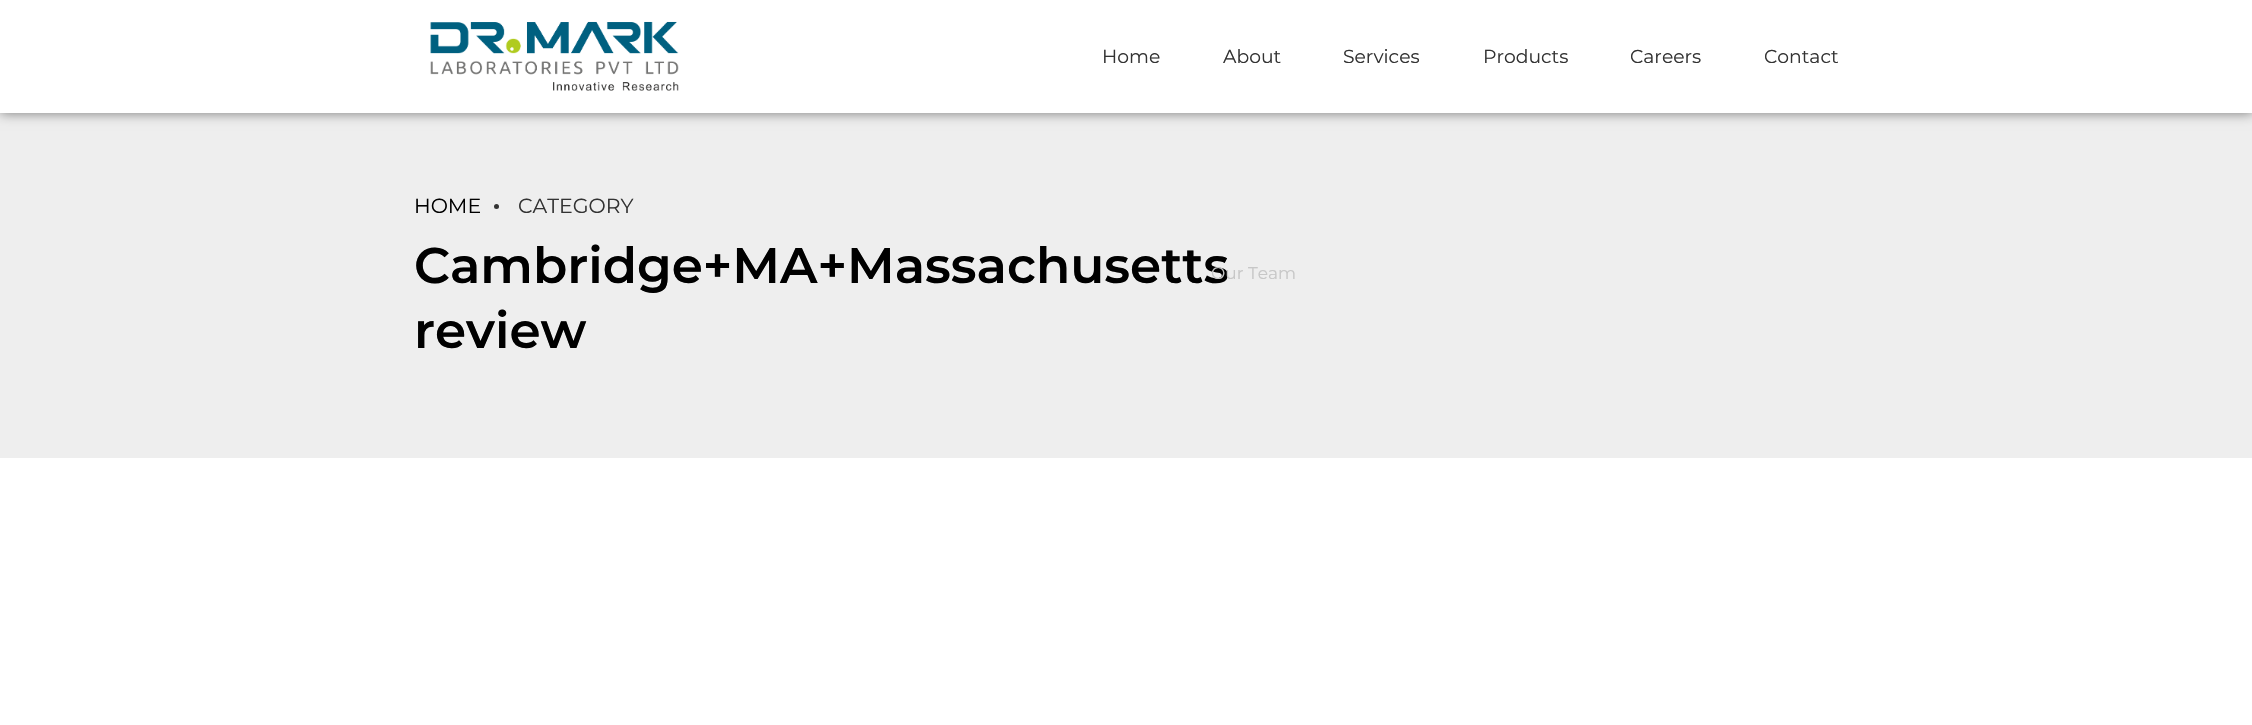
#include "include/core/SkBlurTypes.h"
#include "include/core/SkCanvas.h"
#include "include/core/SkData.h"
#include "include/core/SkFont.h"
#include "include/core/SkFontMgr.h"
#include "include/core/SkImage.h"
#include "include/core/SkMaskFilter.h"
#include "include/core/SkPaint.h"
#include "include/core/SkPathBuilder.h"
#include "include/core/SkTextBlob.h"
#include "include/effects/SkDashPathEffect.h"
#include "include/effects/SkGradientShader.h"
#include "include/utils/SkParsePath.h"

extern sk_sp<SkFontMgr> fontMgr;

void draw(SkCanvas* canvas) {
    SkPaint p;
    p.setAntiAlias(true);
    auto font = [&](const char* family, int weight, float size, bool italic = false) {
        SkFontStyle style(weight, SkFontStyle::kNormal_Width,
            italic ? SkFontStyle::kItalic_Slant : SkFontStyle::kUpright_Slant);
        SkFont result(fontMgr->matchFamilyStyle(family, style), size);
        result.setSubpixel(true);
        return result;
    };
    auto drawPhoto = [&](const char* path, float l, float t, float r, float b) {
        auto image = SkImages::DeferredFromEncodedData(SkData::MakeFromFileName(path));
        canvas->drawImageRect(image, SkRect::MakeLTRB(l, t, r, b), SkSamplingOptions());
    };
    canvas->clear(0xFFFFFFFF);
    p.setColor(0xFFEEEEEE);
    canvas->drawRect(SkRect::MakeLTRB(0, 113, 2252, 458), p);
    auto font1 = font("Montserrat", 400, 20.5f);
    p.setColor(0xFF000000);
    canvas->drawString("HOME", 414, 213, font1, p);
    p.setColor(0xFF333333);
    canvas->drawCircle(496.5f, 206.5f, 2.5f, p);
    canvas->drawString("CATEGORY", 518, 213, font1, p);
    auto font2 = font("Montserrat", 600, 50);
    p.setColor(0xFF000000);
    canvas->drawString("Cambridge+MA+Massachusetts", 414, 283, font2, p);
    canvas->drawString("review", 414, 348, font2, p);
    p.setColor(0x80000000);
    p.setMaskFilter(SkMaskFilter::MakeBlur(kNormal_SkBlurStyle, 6));
    canvas->drawRect(SkRect::MakeLTRB(0, 0, 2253, 113), p);
    p.setMaskFilter(nullptr);
    p.setColor(0xFFFFFFFF);
    canvas->drawRect(SkRect::MakeLTRB(0, 0, 2252, 113), p);
    drawPhoto("media/1.png", 430, 21, 679, 91);
    auto font3 = font("Montserrat", 400, 18.75f);
    p.setColor(0xFF333333);
    canvas->drawString("Home", 1102, 63, font3, p);
    canvas->drawString("About", 1223, 63, font3, p);
    auto font4 = font("Montserrat", 400, 17);
    p.setColor(0xFFC7C7C7);
    canvas->drawString("Our Team", 1211, 279, font4, p);
    p.setColor(0xFF333333);
    {
        const struct { const char* s; float x, y; } items[] = {
            {"Services", 1343, 63},
            {"Products", 1483, 63},
            {"Careers", 1630, 63},
            {"Contact", 1764, 63},
        };
        for (auto [s, x, y] : items) {
            canvas->drawString(s, x, y, font3, p);
        }
    }
}
